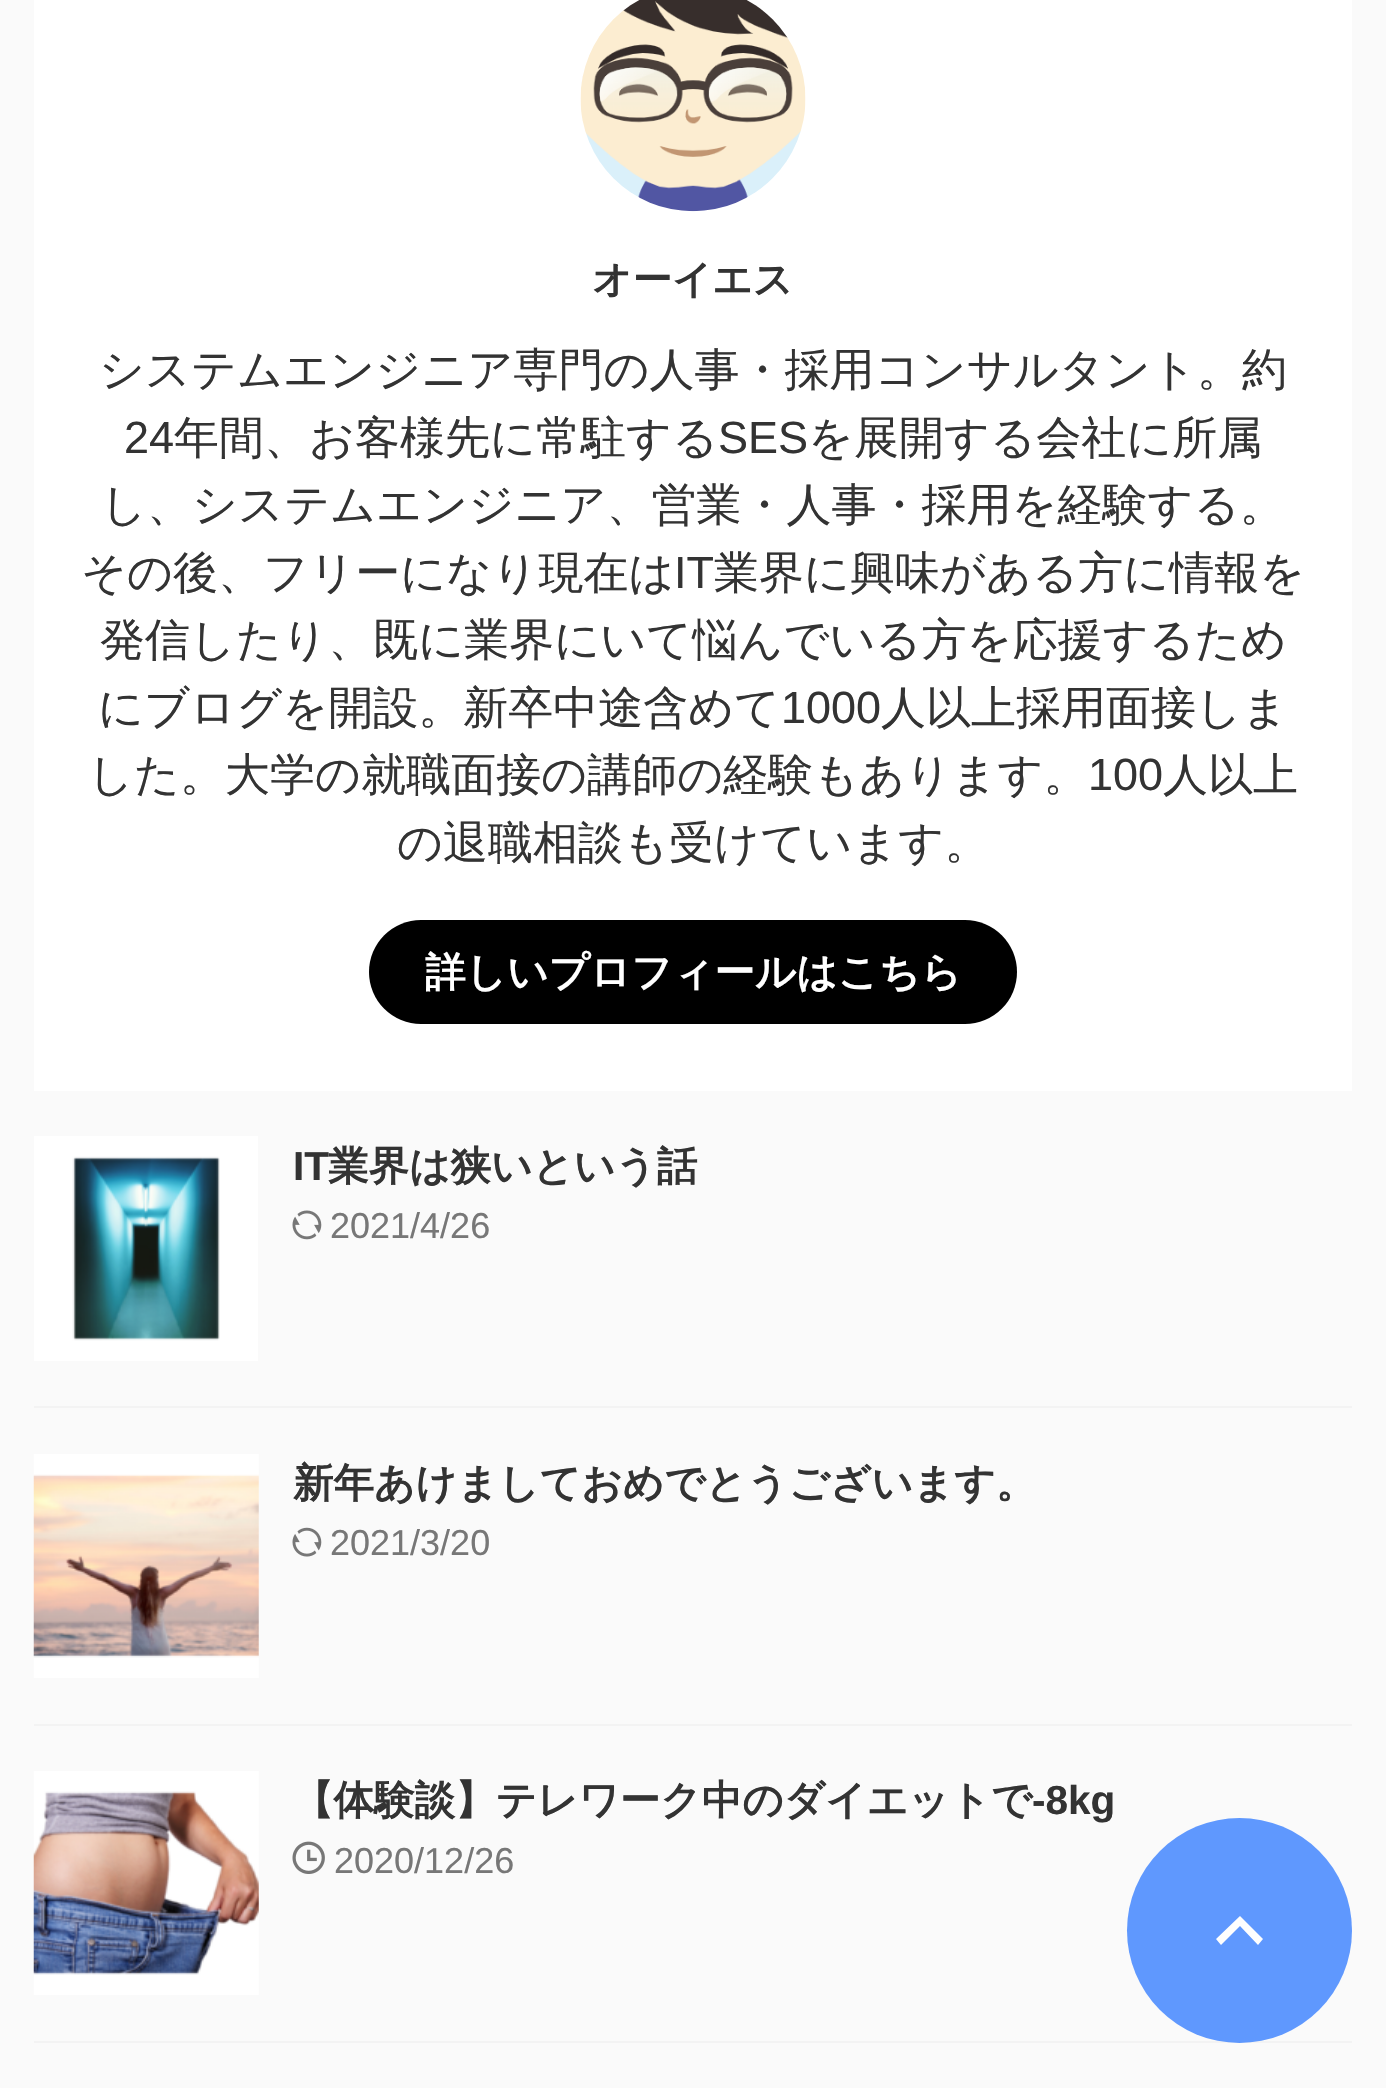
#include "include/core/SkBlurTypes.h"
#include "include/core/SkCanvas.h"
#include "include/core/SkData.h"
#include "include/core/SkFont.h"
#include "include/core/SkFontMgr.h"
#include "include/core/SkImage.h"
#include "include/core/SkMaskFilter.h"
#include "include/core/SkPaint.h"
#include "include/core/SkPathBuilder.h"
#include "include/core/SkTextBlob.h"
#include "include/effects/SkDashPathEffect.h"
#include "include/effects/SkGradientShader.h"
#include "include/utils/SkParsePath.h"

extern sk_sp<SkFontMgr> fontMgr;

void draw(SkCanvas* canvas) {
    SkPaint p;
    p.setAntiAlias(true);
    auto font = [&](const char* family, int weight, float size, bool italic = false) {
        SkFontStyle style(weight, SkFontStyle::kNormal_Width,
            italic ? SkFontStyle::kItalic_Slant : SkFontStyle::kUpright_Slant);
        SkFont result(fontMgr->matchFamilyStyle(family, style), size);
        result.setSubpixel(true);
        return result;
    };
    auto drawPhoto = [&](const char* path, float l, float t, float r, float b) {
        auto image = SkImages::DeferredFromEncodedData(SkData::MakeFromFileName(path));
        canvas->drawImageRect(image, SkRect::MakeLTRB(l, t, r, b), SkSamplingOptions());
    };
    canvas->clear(0xFFFAFAFA);
    p.setColor(0xFFFFFFFF);
    canvas->drawRect(SkRect::MakeLTRB(34, 0, 1352, 1091), p);
    drawPhoto("media/1.png", 580, 0, 806, 212);
    auto font1 = font("WenQuanYi Zen Hei", 700, 39.5f);
    p.setColor(0xFF333333);
    canvas->drawString("オーイエス", 592, 293, font1, p);
    auto font2 = font("WenQuanYi Zen Hei", 500, 45);
    canvas->drawString("システムエンジニア専門の人事・採用コンサルタント。約", 99, 385, font2, p);
    auto font3 = font("Liberation Sans", 400, 45);
    canvas->drawString("24", 124, 453, font3, p);
    canvas->drawString("年間、お客様先に常駐する", 174, 453, font2, p);
    canvas->drawString("SES", 718, 453, font3, p);
    {
        const struct { const char* s; float x, y; } items[] = {
            {"を展開する会社に所属", 808, 453},
            {"し、システムエンジニア、営業・人事・採用を経験する。", 101, 520},
            {"その後、フリーになり現在は", 81, 588},
        };
        for (auto [s, x, y] : items) {
            canvas->drawString(s, x, y, font2, p);
        }
    }
    canvas->drawString("IT", 674, 588, font3, p);
    {
        const struct { const char* s; float x, y; } items[] = {
            {"業界に興味がある方に情報を", 714, 588},
            {"発信したり、既に業界にいて悩んでいる方を応援するため", 100, 655},
            {"にブログを開設。新卒中途含めて", 98, 723},
        };
        for (auto [s, x, y] : items) {
            canvas->drawString(s, x, y, font2, p);
        }
    }
    canvas->drawString("1000", 781, 723, font3, p);
    canvas->drawString("人以上採用面接しま", 881, 723, font2, p);
    canvas->drawString("した。大学の就職面接の講師の経験もあります。", 88, 790, font2, p);
    canvas->drawString("100", 1088, 790, font3, p);
    canvas->drawString("人以上", 1163, 790, font2, p);
    canvas->drawString("の退職相談も受けています。", 397, 858, font2, p);
    p.setColor(0xFF000000);
    canvas->drawRoundRect(SkRect::MakeLTRB(369, 920, 1017, 1024), 52, 52, p);
    auto font4 = font("WenQuanYi Zen Hei", 700, 40.5f);
    p.setColor(0xFFFFFFFF);
    canvas->drawString("詳しいプロフィールはこちら", 425, 986, font4, p);
    p.setColor(0xFFF3F3F3);
    canvas->drawRect(SkRect::MakeLTRB(34, 1406, 1352, 1408), p);
    drawPhoto("media/2.png", 34, 1136, 258, 1361);
    auto font5 = font("Liberation Sans", 700, 40.5f);
    p.setColor(0xFF333333);
    canvas->drawString("IT", 293, 1180, font5, p);
    canvas->drawString("業界は狭いという話", 328, 1180, font4, p);
    drawPhoto("media/3.png", 292, 1210, 322, 1240);
    auto font6 = font("Liberation Sans", 400, 36);
    p.setColor(0xFF777777);
    canvas->drawString("2021/4/26", 330, 1238, font6, p);
    p.setColor(0xFFF3F3F3);
    canvas->drawRect(SkRect::MakeLTRB(34, 1724, 1352, 1726), p);
    drawPhoto("media/4.png", 33, 1454, 259, 1678);
    p.setColor(0xFF333333);
    canvas->drawString("新年あけましておめでとうございます。", 293, 1497, font4, p);
    drawPhoto("media/5.png", 292, 1527, 322, 1557);
    p.setColor(0xFF777777);
    canvas->drawString("2021/3/20", 330, 1555, font6, p);
    p.setColor(0xFFF3F3F3);
    canvas->drawRect(SkRect::MakeLTRB(34, 2041, 1352, 2043), p);
    drawPhoto("media/6.png", 33, 1771, 259, 1995);
    p.setColor(0xFF333333);
    canvas->drawString("【体験談】テレワーク中のダイエットで", 293, 1814, font4, p);
    canvas->drawString("-8kg", 1032, 1814, font5, p);
    drawPhoto("media/7.png", 292, 1841, 325, 1874);
    p.setColor(0xFF777777);
    canvas->drawString("2020/12/26", 334, 1873, font6, p);
    p.setColor(0xCC3880FF);
    canvas->drawCircle(1239.5f, 1930.5f, 112.5f, p);
    p.setColor(0xFFFEFEFE);
    canvas->drawPath(SkPathBuilder().moveTo(1240, 1926).lineTo(1221, 1945).lineTo(1216, 1939).lineTo(1240, 1916).lineTo(1263, 1939).lineTo(1258, 1945).close().detach(), p);
}
